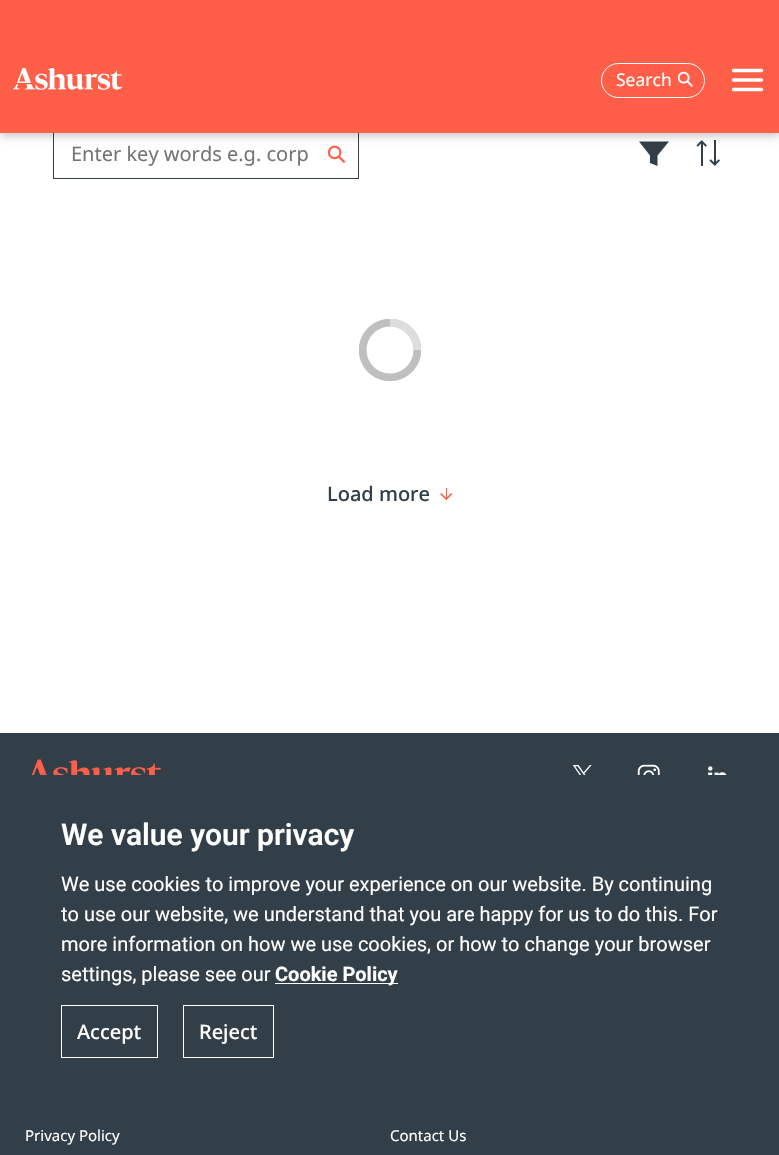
#include "include/core/SkBlurTypes.h"
#include "include/core/SkCanvas.h"
#include "include/core/SkData.h"
#include "include/core/SkFont.h"
#include "include/core/SkFontMgr.h"
#include "include/core/SkImage.h"
#include "include/core/SkMaskFilter.h"
#include "include/core/SkPaint.h"
#include "include/core/SkPathBuilder.h"
#include "include/core/SkTextBlob.h"
#include "include/effects/SkDashPathEffect.h"
#include "include/effects/SkGradientShader.h"
#include "include/utils/SkParsePath.h"

extern sk_sp<SkFontMgr> fontMgr;

void draw(SkCanvas* canvas) {
    SkPaint p;
    p.setAntiAlias(true);
    auto font = [&](const char* family, int weight, float size, bool italic = false) {
        SkFontStyle style(weight, SkFontStyle::kNormal_Width,
            italic ? SkFontStyle::kItalic_Slant : SkFontStyle::kUpright_Slant);
        SkFont result(fontMgr->matchFamilyStyle(family, style), size);
        result.setSubpixel(true);
        return result;
    };
    auto drawPhoto = [&](const char* path, float l, float t, float r, float b) {
        auto image = SkImages::DeferredFromEncodedData(SkData::MakeFromFileName(path));
        canvas->drawImageRect(image, SkRect::MakeLTRB(l, t, r, b), SkSamplingOptions());
    };
    canvas->clear(0xFF333F48);
    p.setColor(0xFFFFFFFF);
    canvas->drawRect(SkRect::MakeLTRB(0, 133, 779, 733), p);
    p.setStyle(SkPaint::kStroke_Style);
    p.setStrokeWidth(1);
    p.setColor(0xFF333F48);
    canvas->drawRect(SkRect::MakeLTRB(53.5f, 129.5f, 358.5f, 178.5f), p);
    drawPhoto("media/3.png", 328, 145, 346, 164);
    p.setStyle(SkPaint::kFill_Style);
    canvas->drawPath(SkPathBuilder().moveTo(639, 141.5f).lineTo(650, 155.5f).lineTo(650, 163).lineTo(657.5f, 166).lineTo(657.5f, 155.5f).lineTo(669, 141.5f).close().detach(), p);
    drawPhoto("media/4.png", 696, 140, 720, 166);
    p.setColor(0x42000000);
    p.setMaskFilter(SkMaskFilter::MakeBlur(kNormal_SkBlurStyle, 4.5f));
    canvas->drawRect(SkRect::MakeLTRB(0, 3, 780, 135), p);
    p.setMaskFilter(nullptr);
    p.setColor(0xFFFF5F49);
    canvas->drawRect(SkRect::MakeLTRB(0, 0, 779, 133), p);
    drawPhoto("media/1.png", 13, 68, 123, 90);
    p.setStyle(SkPaint::kStroke_Style);
    p.setColor(0xFFFFFFFF);
    canvas->drawRoundRect(SkRect::MakeLTRB(601.5f, 63.5f, 704.5f, 97.5f), 17, 17, p);
    auto font1 = font("Noto Sans", 400, 17.5f);
    p.setStyle(SkPaint::kFill_Style);
    canvas->drawString("Search", 616, 86, font1, p);
    drawPhoto("media/2.png", 678, 71, 693, 87);
    p.setStyle(SkPaint::kStroke_Style);
    p.setStrokeWidth(3.5f);
    p.setStrokeCap(SkPaint::kRound_Cap);
    canvas->drawPath(SkPathBuilder().moveTo(733.5f, 70.5f).lineTo(761.5f, 70.5f).moveTo(733.5f, 80).lineTo(761.5f, 80).moveTo(733.5f, 89.5f).lineTo(761.5f, 89.5f).detach(), p);
    auto font2 = font("Noto Sans", 400, 20);
    p.setStyle(SkPaint::kFill_Style);
    p.setColor(0xFF757575);
    canvas->drawString("Enter key words e.g. corp", 71, 161, font2, p);
    drawPhoto("media/5.png", 359, 319, 421, 381);
    auto font3 = font("Noto Sans", 500, 20);
    p.setColor(0xFF333F48);
    canvas->drawString("Load more", 327, 501, font3, p);
    drawPhoto("media/6.png", 440, 488, 453, 501);
    drawPhoto("media/7.png", 31, 759, 161, 775);
    drawPhoto("media/8.png", 573, 765, 592, 775);
    drawPhoto("media/9.png", 637, 764, 660, 775);
    drawPhoto("media/10.png", 708, 766, 727, 775);
    auto font4 = font("Noto Sans", 400, 15);
    p.setColor(0xFFFFFFFF);
    canvas->drawString("Privacy Policy", 25, 1141, font4, p);
    canvas->drawString("Contact Us", 390, 1141, font4, p);
    auto font5 = font("Roboto", 600, 30);
    canvas->drawString("We value your privacy", 61, 845, font5, p);
    auto font6 = font("Roboto", 400, 20);
    {
        const struct { const char* s; float x, y; } items[] = {
            {"We use cookies to improve your experience on our website. By continuing", 61, 891},
            {"to use our website, we understand that you are happy for us to do this. For", 61, 921},
            {"more information on how we use cookies, or how to change your browser", 61, 951},
            {"settings, please see our", 61, 981},
        };
        for (auto [s, x, y] : items) {
            canvas->drawString(s, x, y, font6, p);
        }
    }
    canvas->drawRect(SkRect::MakeLTRB(275, 983, 398, 984), p);
    auto font7 = font("Roboto", 700, 20);
    canvas->drawString("Cookie Policy", 275, 981, font7, p);
    p.setStyle(SkPaint::kStroke_Style);
    p.setStrokeWidth(1);
    p.setStrokeCap(SkPaint::kButt_Cap);
    canvas->drawRect(SkRect::MakeLTRB(61.5f, 1005.5f, 157.5f, 1057.5f), p);
    p.setStyle(SkPaint::kFill_Style);
    canvas->drawString("Accept", 77, 1039, font3, p);
    p.setStyle(SkPaint::kStroke_Style);
    canvas->drawRect(SkRect::MakeLTRB(183.5f, 1005.5f, 273.5f, 1057.5f), p);
    p.setStyle(SkPaint::kFill_Style);
    canvas->drawString("Reject", 199, 1039, font3, p);
}
